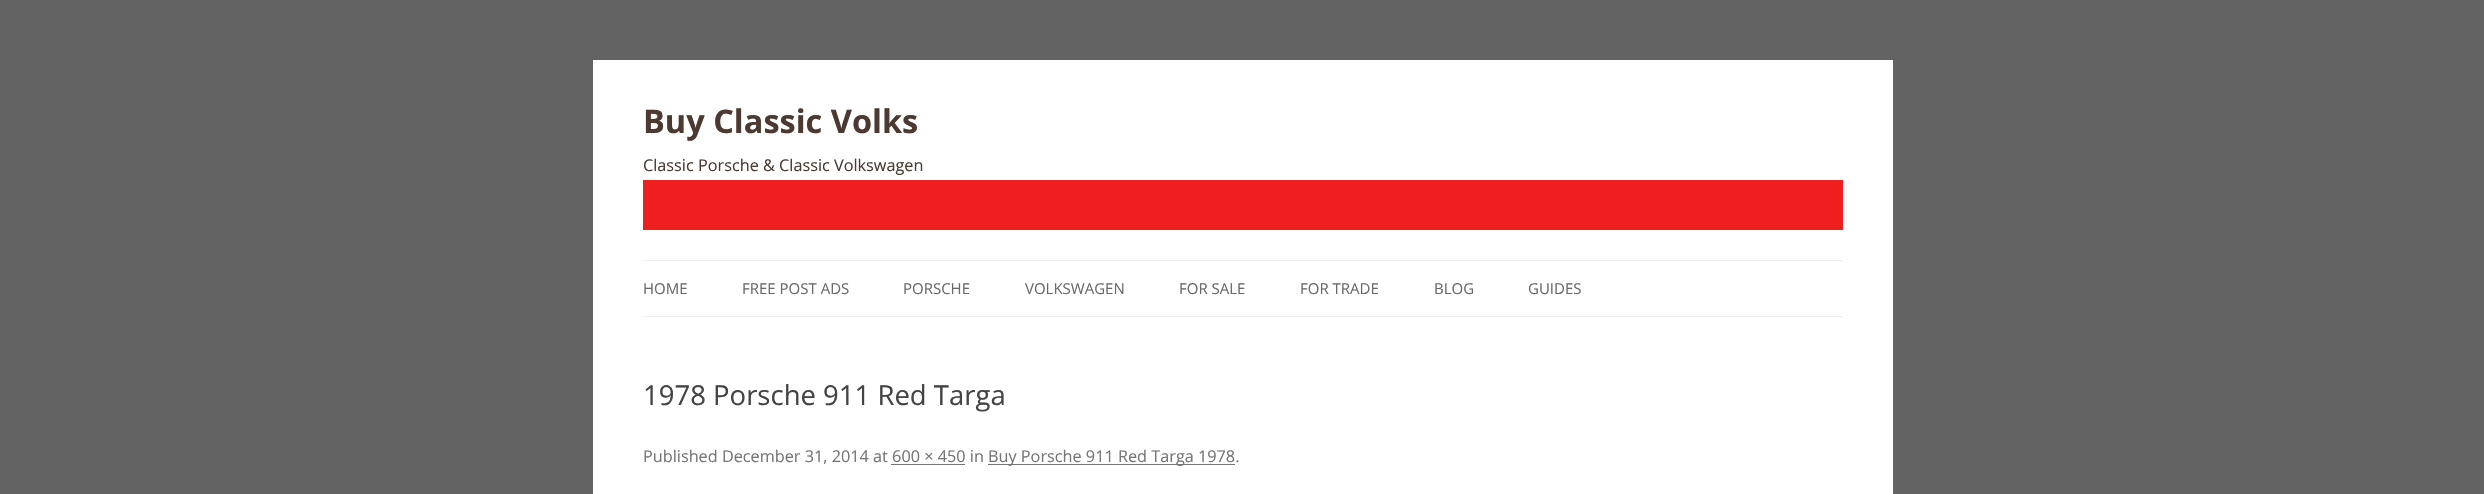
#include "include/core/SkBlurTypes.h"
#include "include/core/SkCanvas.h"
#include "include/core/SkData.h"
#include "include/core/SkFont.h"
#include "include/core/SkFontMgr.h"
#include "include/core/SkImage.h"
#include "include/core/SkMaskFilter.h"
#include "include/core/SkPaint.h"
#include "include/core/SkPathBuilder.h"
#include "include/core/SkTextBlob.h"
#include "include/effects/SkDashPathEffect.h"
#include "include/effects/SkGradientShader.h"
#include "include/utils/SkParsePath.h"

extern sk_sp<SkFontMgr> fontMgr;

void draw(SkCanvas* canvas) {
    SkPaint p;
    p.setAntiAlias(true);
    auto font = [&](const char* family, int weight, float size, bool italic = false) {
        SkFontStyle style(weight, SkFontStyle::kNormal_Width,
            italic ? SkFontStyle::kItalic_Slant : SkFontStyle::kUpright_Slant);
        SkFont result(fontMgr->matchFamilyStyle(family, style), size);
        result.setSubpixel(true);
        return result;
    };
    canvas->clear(0xFF636363);
    p.setColor(0xFFFFFFFF);
    canvas->drawRect(SkRect::MakeLTRB(593, 60, 1893, 494), p);
    auto font1 = font("Open Sans", 700, 32.5f);
    p.setColor(0xFF4C3A32);
    canvas->drawString("Buy Classic Volks", 643, 133, font1, p);
    auto font2 = font("Open Sans", 400, 16.25f);
    canvas->drawString("Classic Porsche & Classic Volkswagen", 643, 171, font2, p);
    {
        const struct { float l, t, r, b; SkColor color; } items[] = {
            {643, 180, 1843, 230, 0xFFF01F1F},
            {643, 260, 1843, 261, 0xFFEDEDED},
            {643, 316, 1843, 317, 0xFFEDEDED},
        };
        for (auto [l, t, r, b, color] : items) {
            p.setColor(color);
            canvas->drawRect(SkRect::MakeLTRB(l, t, r, b), p);
        }
    }
    auto font3 = font("Open Sans", 400, 15);
    p.setColor(0xFF6A6A6A);
    {
        const struct { const char* s; float x, y; } items[] = {
            {"HOME", 643, 294},
            {"FREE POST ADS", 742, 294},
            {"PORSCHE", 903, 294},
            {"VOLKSWAGEN", 1025, 294},
            {"FOR SALE", 1179, 294},
            {"FOR TRADE", 1300, 294},
            {"BLOG", 1434, 294},
            {"GUIDES", 1528, 294},
        };
        for (auto [s, x, y] : items) {
            canvas->drawString(s, x, y, font3, p);
        }
    }
    auto font4 = font("Open Sans", 400, 27.5f);
    p.setColor(0xFF444444);
    canvas->drawString("1978 Porsche 911 Red Targa", 643, 405, font4, p);
    p.setColor(0xFF757575);
    canvas->drawString("Published December 31, 2014 at 600 × 450 in", 643, 462, font2, p);
    canvas->drawRect(SkRect::MakeLTRB(988, 464, 1235, 465), p);
    canvas->drawString("Buy Porsche 911 Red Targa 1978.", 988, 462, font2, p);
    canvas->drawRect(SkRect::MakeLTRB(891, 464, 965, 465), p);
}
